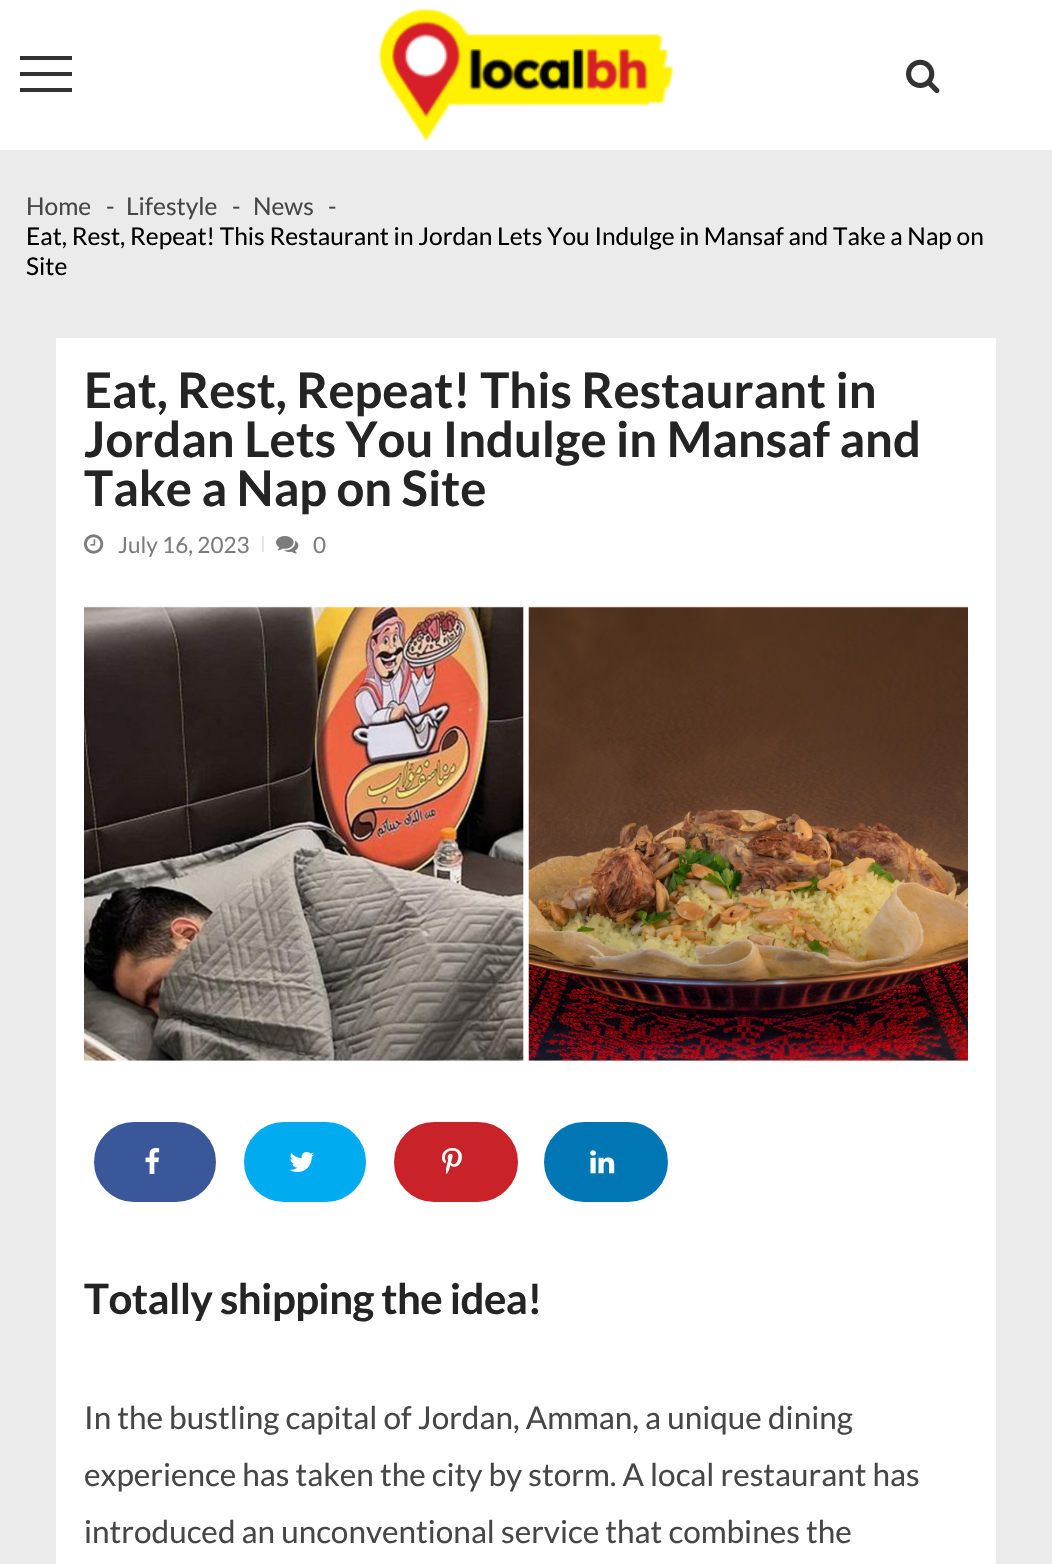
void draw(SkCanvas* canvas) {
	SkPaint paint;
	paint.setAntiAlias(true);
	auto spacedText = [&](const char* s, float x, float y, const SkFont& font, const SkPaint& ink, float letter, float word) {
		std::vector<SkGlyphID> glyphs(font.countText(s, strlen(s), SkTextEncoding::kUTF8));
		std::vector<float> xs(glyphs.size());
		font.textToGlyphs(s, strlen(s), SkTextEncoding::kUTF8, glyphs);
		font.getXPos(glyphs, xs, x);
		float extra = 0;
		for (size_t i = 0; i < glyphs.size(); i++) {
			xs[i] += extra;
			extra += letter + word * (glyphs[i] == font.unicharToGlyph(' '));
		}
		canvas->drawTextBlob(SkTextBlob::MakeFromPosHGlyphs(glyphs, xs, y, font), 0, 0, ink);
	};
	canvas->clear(0xffebebeb);
	paint.setColor(0xffffffff);
	canvas->drawRect(SkRect::MakeXYWH(0, 0, 1052, 150), paint);
	paint.setColor(0xff333333);
	canvas->drawRect(SkRect::MakeXYWH(20, 72, 52, 4), paint);
	canvas->drawRect(SkRect::MakeXYWH(20, 56, 52, 4), paint);
	canvas->drawRect(SkRect::MakeXYWH(20, 88, 52, 4), paint);
	canvas->drawImageRect(SkImages::DeferredFromEncodedData(SkData::MakeFromFileName("img1.png")), SkRect::MakeXYWH(378, 8, 296, 134), SkSamplingOptions());
	canvas->drawImageRect(SkImages::DeferredFromEncodedData(SkData::MakeFromFileName("img2.png")), SkRect::MakeXYWH(906, 59, 34, 35), SkSamplingOptions());
	SkFont f1(fontMgr->matchFamilyStyle("Lato", SkFontStyle::Normal()), 24.5);
	f1.setSubpixel(true);
	paint.setColor(0xff464646);
	canvas->drawString("Home", 26, 215, f1, paint);
	canvas->drawString("-", 106, 215, f1, paint);
	canvas->drawString("Lifestyle", 126, 215, f1, paint);
	canvas->drawString("-", 232, 215, f1, paint);
	canvas->drawString("News", 253, 215, f1, paint);
	canvas->drawString("-", 328, 215, f1, paint);
	paint.setColor(0xff000000);
	canvas->drawString("Eat, Rest, Repeat! This Restaurant in Jordan Lets You Indulge in Mansaf and Take a Nap on", 26, 245, f1, paint);
	canvas->drawString("Site", 26, 275, f1, paint);
	paint.setColor(0xffffffff);
	canvas->drawRect(SkRect::MakeXYWH(56, 338, 940, 1226), paint);
	SkFont f2(fontMgr->matchFamilyStyle("Lato", SkFontStyle::Bold()), 49);
	f2.setSubpixel(true);
	paint.setColor(0xff242424);
	canvas->drawString("Eat, Rest, Repeat! This Restaurant in", 84, 408, f2, paint);
	canvas->drawString("Jordan Lets You Indulge in Mansaf and", 84, 457, f2, paint);
	canvas->drawString("Take a Nap on Site", 84, 506, f2, paint);
	canvas->drawImageRect(SkImages::DeferredFromEncodedData(SkData::MakeFromFileName("img3.png")), SkRect::MakeXYWH(84, 534, 20, 20), SkSamplingOptions());
	SkFont f3(fontMgr->matchFamilyStyle("Lato", SkFontStyle::Normal()), 22.5);
	f3.setSubpixel(true);
	paint.setColor(0xff7c7c7c);
	canvas->drawString("July 16, 2023", 118, 553, f3, paint);
	paint.setColor(0xffe6e6e6);
	canvas->drawRect(SkRect::MakeXYWH(262, 536, 2, 16), paint);
	canvas->drawImageRect(SkImages::DeferredFromEncodedData(SkData::MakeFromFileName("img4.png")), SkRect::MakeXYWH(276, 536, 23, 18), SkSamplingOptions());
	paint.setColor(0xff7c7c7c);
	canvas->drawString("0", 313, 553, f3, paint);
	canvas->drawImageRect(SkImages::DeferredFromEncodedData(SkData::MakeFromFileName("img5.png")), SkRect::MakeXYWH(84, 606, 884, 456), SkSamplingOptions());
	paint.setColor(0xff3a579a);
	canvas->drawRoundRect(SkRect::MakeXYWH(96, 1124, 118, 76), 38, 38, paint);
	paint.setStroke(true);
	paint.setStrokeWidth(4);
	canvas->drawRoundRect(SkRect::MakeXYWH(96, 1124, 118, 76), 38, 38, paint);
	canvas->drawImageRect(SkImages::DeferredFromEncodedData(SkData::MakeFromFileName("img6.png")), SkRect::MakeXYWH(145, 1148, 15, 26), SkSamplingOptions());
	paint.setStroke(false);
	paint.setColor(0xff00abf0);
	canvas->drawRoundRect(SkRect::MakeXYWH(246, 1124, 118, 76), 38, 38, paint);
	paint.setStroke(true);
	canvas->drawRoundRect(SkRect::MakeXYWH(246, 1124, 118, 76), 38, 38, paint);
	canvas->drawImageRect(SkImages::DeferredFromEncodedData(SkData::MakeFromFileName("img7.png")), SkRect::MakeXYWH(289, 1152, 25, 20), SkSamplingOptions());
	paint.setStroke(false);
	paint.setColor(0xffc92228);
	canvas->drawRoundRect(SkRect::MakeXYWH(396, 1124, 120, 76), 38, 38, paint);
	paint.setStroke(true);
	canvas->drawRoundRect(SkRect::MakeXYWH(396, 1124, 120, 76), 38, 38, paint);
	canvas->drawImageRect(SkImages::DeferredFromEncodedData(SkData::MakeFromFileName("img8.png")), SkRect::MakeXYWH(441, 1148, 21, 26), SkSamplingOptions());
	paint.setStroke(false);
	paint.setColor(0xff0077b5);
	canvas->drawRoundRect(SkRect::MakeXYWH(546, 1124, 120, 76), 38, 38, paint);
	paint.setStroke(true);
	canvas->drawRoundRect(SkRect::MakeXYWH(546, 1124, 120, 76), 38, 38, paint);
	canvas->drawImageRect(SkImages::DeferredFromEncodedData(SkData::MakeFromFileName("img9.png")), SkRect::MakeXYWH(590, 1150, 25, 24), SkSamplingOptions());
	SkFont f4(fontMgr->matchFamilyStyle("Lato", SkFontStyle::Bold()), 42);
	f4.setSubpixel(true);
	paint.setStroke(false);
	paint.setColor(0xff242424);
	spacedText("Totally shipping the idea!", 84, 1314, f4, paint, -0.55, 0);
	SkFont f5(fontMgr->matchFamilyStyle("Lato", SkFontStyle::Normal()), 31.5);
	f5.setSubpixel(true);
	paint.setColor(0xff464646);
	canvas->drawString("In the bustling capital of Jordan, Amman, a unique dining", 84, 1429, f5, paint);
	canvas->drawString("experience has taken the city by storm. A local restaurant has", 84, 1486, f5, paint);
	canvas->drawString("introduced an unconventional service that combines the", 84, 1543, f5, paint);
}
